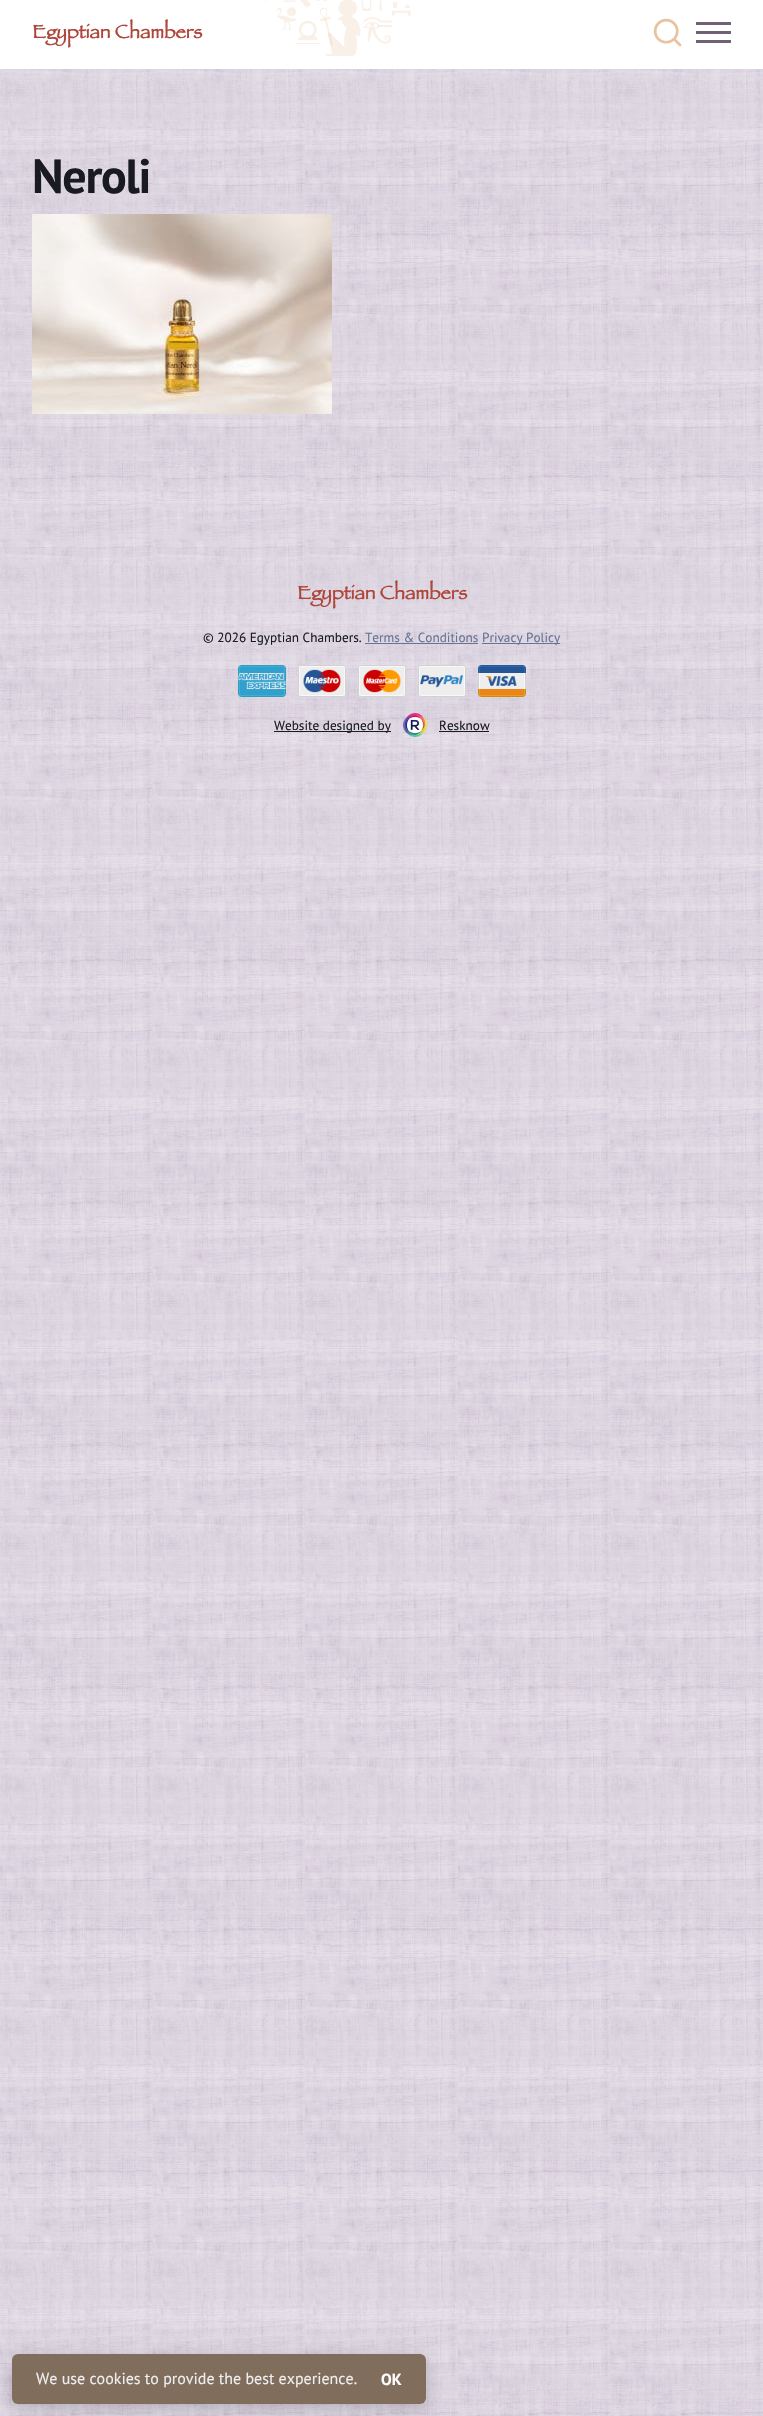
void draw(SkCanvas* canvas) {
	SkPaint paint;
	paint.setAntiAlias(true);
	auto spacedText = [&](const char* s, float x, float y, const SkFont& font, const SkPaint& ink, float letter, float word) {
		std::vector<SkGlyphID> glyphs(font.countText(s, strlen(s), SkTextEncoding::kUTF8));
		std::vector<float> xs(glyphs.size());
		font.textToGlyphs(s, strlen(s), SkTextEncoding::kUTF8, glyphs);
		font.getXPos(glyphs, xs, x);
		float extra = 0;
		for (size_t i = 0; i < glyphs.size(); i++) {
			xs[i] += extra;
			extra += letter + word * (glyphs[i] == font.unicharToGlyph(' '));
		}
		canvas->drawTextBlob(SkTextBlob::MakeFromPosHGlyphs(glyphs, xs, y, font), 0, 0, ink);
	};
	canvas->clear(0xffe5dfe8);
	canvas->drawImageRect(SkImages::DeferredFromEncodedData(SkData::MakeFromFileName("img1.png")), SkRect::MakeXYWH(0, 69, 763, 2347), SkSamplingOptions());
	paint.setColor(0xffffffff);
	canvas->drawRect(SkRect::MakeXYWH(0, 0, 763, 69), paint);
	SkFont f1(fontMgr->matchFamilyStyle("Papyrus", SkFontStyle::Bold()), 19.25);
	f1.setSubpixel(true);
	paint.setColor(0xffaf463b);
	canvas->drawString("Egyptian Chambers", 32, 38, f1, paint);
	canvas->drawImageRect(SkImages::DeferredFromEncodedData(SkData::MakeFromFileName("img2.png")), SkRect::MakeXYWH(265, 0, 146, 56), SkSamplingOptions());
	canvas->drawImageRect(SkImages::DeferredFromEncodedData(SkData::MakeFromFileName("img3.png")), SkRect::MakeXYWH(653, 18, 29, 29), SkSamplingOptions());
	paint.setColor(0xff706177);
	canvas->drawRect(SkRect::MakeXYWH(696, 22, 35, 3), paint);
	canvas->drawRect(SkRect::MakeXYWH(696, 31, 35, 3), paint);
	canvas->drawRect(SkRect::MakeXYWH(696, 40, 35, 3), paint);
	SkFont f2(fontMgr->matchFamilyStyle("PT Sans", SkFontStyle::Bold()), 48);
	f2.setSubpixel(true);
	paint.setColor(0xff191a22);
	spacedText("Neroli", 32, 193, f2, paint, -1.25, 0);
	canvas->drawImageRect(SkImages::DeferredFromEncodedData(SkData::MakeFromFileName("img4.png")), SkRect::MakeXYWH(32, 214, 300, 200), SkSamplingOptions());
	paint.setColor(0xffaf463b);
	canvas->drawString("Egyptian Chambers", 297, 599, f1, paint);
	SkFont f3(fontMgr->matchFamilyStyle("PT Sans", SkFontStyle::Normal()), 13.25);
	f3.setSubpixel(true);
	paint.setColor(0xff191a22);
	canvas->drawString("© 2026 Egyptian Chambers.", 203, 642, f3, paint);
	paint.setColor(0xff667391);
	canvas->drawString("Terms & Conditions", 365, 642, f3, paint);
	canvas->drawRect(SkRect::MakeXYWH(365, 643, 113, 1), paint);
	canvas->drawRect(SkRect::MakeXYWH(482, 643, 78, 1), paint);
	canvas->drawString("Privacy Policy", 482, 642, f3, paint);
	canvas->drawImageRect(SkImages::DeferredFromEncodedData(SkData::MakeFromFileName("img5.png")), SkRect::MakeXYWH(238, 665, 48, 32), SkSamplingOptions());
	canvas->drawImageRect(SkImages::DeferredFromEncodedData(SkData::MakeFromFileName("img6.png")), SkRect::MakeXYWH(298, 665, 48, 32), SkSamplingOptions());
	canvas->drawImageRect(SkImages::DeferredFromEncodedData(SkData::MakeFromFileName("img7.png")), SkRect::MakeXYWH(358, 665, 48, 32), SkSamplingOptions());
	canvas->drawImageRect(SkImages::DeferredFromEncodedData(SkData::MakeFromFileName("img8.png")), SkRect::MakeXYWH(418, 665, 48, 32), SkSamplingOptions());
	canvas->drawImageRect(SkImages::DeferredFromEncodedData(SkData::MakeFromFileName("img9.png")), SkRect::MakeXYWH(478, 665, 48, 32), SkSamplingOptions());
	paint.setColor(0xff191a22);
	canvas->drawRect(SkRect::MakeXYWH(274, 731, 117, 1), paint);
	canvas->drawString("Website designed by", 274, 730, f3, paint);
	canvas->drawImageRect(SkImages::DeferredFromEncodedData(SkData::MakeFromFileName("img10.png")), SkRect::MakeXYWH(403, 713, 24, 24), SkSamplingOptions());
	canvas->drawString("Resknow", 439, 730, f3, paint);
	canvas->drawRect(SkRect::MakeXYWH(439, 731, 50, 1), paint);
	paint.setColor(0x33000000);
	paint.setMaskFilter(SkMaskFilter::MakeBlur(kNormal_SkBlurStyle, 9));
	canvas->drawRoundRect(SkRect::MakeXYWH(12, 2358, 414, 50), 6, 6, paint);
	paint.setMaskFilter(nullptr);
	paint.setColor(0xff816d5b);
	canvas->drawRoundRect(SkRect::MakeXYWH(12, 2354, 414, 50), 6, 6, paint);
	SkFont f4(fontMgr->matchFamilyStyle("PT Sans", SkFontStyle::Normal()), 16);
	f4.setSubpixel(true);
	paint.setColor(0xffeeeef0);
	canvas->drawString("We use cookies to provide the best experience.", 36, 2384, f4, paint);
	SkFont f5(fontMgr->matchFamilyStyle("PT Sans", SkFontStyle::Bold()), 16);
	f5.setSubpixel(true);
	paint.setColor(0xffffffff);
	canvas->drawString("OK", 381, 2385, f5, paint);
}
